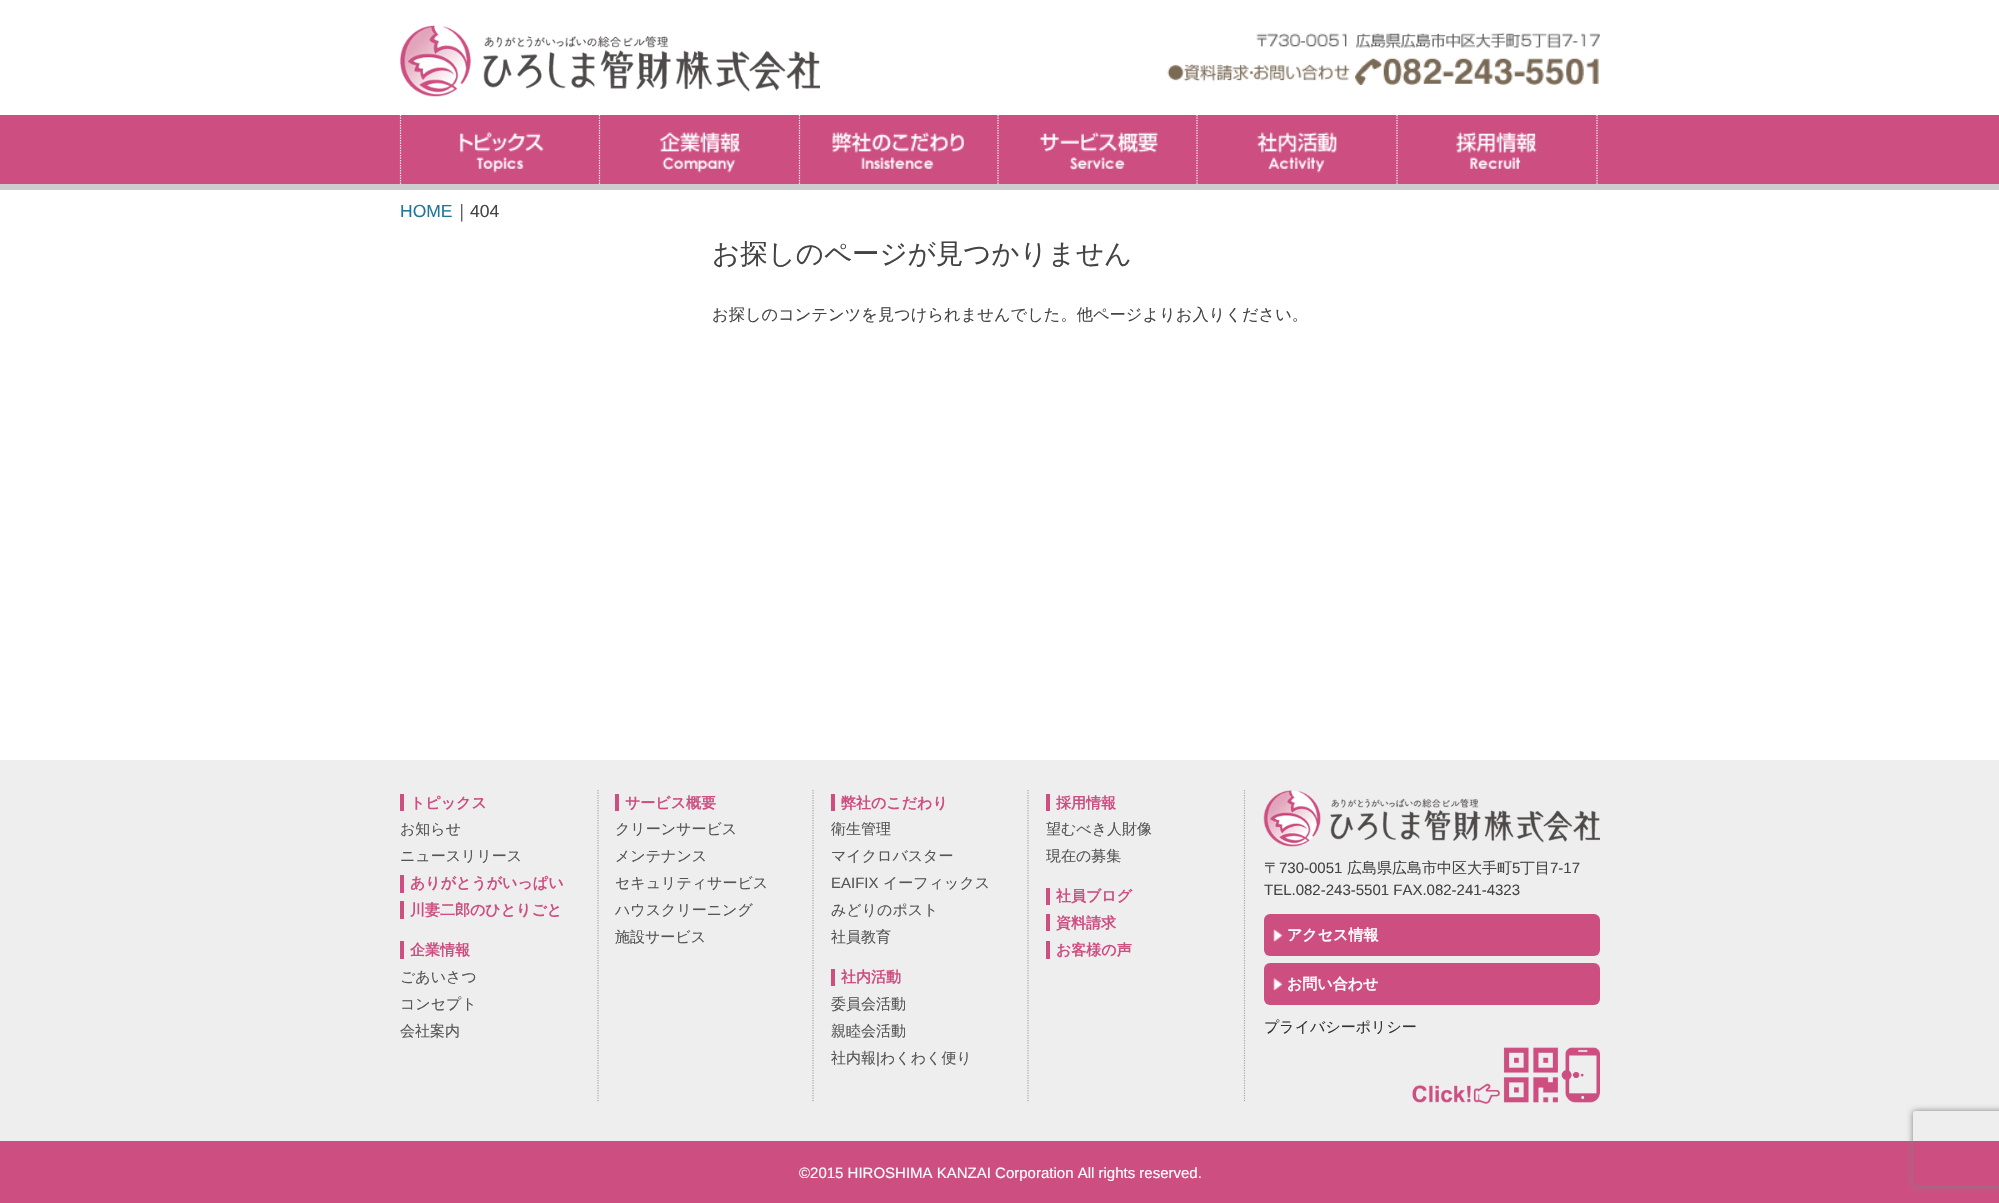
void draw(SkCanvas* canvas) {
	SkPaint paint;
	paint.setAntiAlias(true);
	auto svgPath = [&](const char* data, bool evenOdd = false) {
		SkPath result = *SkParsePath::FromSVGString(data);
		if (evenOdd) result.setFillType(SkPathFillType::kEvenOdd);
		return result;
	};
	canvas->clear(0xffffffff);
	canvas->drawImageRect(SkImages::DeferredFromEncodedData(SkData::MakeFromFileName("img1.png")), SkRect::MakeXYWH(400, 25, 420, 72), SkSamplingOptions());
	canvas->drawImageRect(SkImages::DeferredFromEncodedData(SkData::MakeFromFileName("img2.png")), SkRect::MakeXYWH(1167, 32, 433, 53), SkSamplingOptions());
	paint.setColor(0xffcd4f82);
	canvas->drawRect(SkRect::MakeXYWH(0, 115, 1999, 69), paint);
	paint.setColor(0xffcccccc);
	canvas->drawRect(SkRect::MakeXYWH(0, 184, 1999, 6), paint);
	canvas->drawImageRect(SkImages::DeferredFromEncodedData(SkData::MakeFromFileName("img3.png")), SkRect::MakeXYWH(459, 132, 85, 41), SkSamplingOptions());
	paint.setStroke(true);
	paint.setStrokeWidth(1.2);
	paint.setColor(0xffffffff);
	paint.setPathEffect(SkDashPathEffect::Make({{1.25f, 1.25f}}, 0));
	canvas->drawPath(svgPath("M400.5 115V184"), paint);
	paint.setPathEffect(nullptr);
	canvas->drawImageRect(SkImages::DeferredFromEncodedData(SkData::MakeFromFileName("img4.png")), SkRect::MakeXYWH(659, 132, 82, 41), SkSamplingOptions());
	paint.setPathEffect(SkDashPathEffect::Make({{1.25f, 1.25f}}, 0));
	canvas->drawPath(svgPath("M599.5 115V184"), paint);
	paint.setPathEffect(nullptr);
	canvas->drawImageRect(SkImages::DeferredFromEncodedData(SkData::MakeFromFileName("img5.png")), SkRect::MakeXYWH(832, 132, 132, 37), SkSamplingOptions());
	paint.setPathEffect(SkDashPathEffect::Make({{1.25f, 1.25f}}, 0));
	canvas->drawPath(svgPath("M799.5 115V184"), paint);
	paint.setPathEffect(nullptr);
	canvas->drawImageRect(SkImages::DeferredFromEncodedData(SkData::MakeFromFileName("img6.png")), SkRect::MakeXYWH(1039, 132, 119, 39), SkSamplingOptions());
	paint.setPathEffect(SkDashPathEffect::Make({{1.25f, 1.25f}}, 0));
	canvas->drawPath(svgPath("M998 115V184"), paint);
	paint.setPathEffect(nullptr);
	canvas->drawImageRect(SkImages::DeferredFromEncodedData(SkData::MakeFromFileName("img7.png")), SkRect::MakeXYWH(1257, 132, 80, 41), SkSamplingOptions());
	paint.setPathEffect(SkDashPathEffect::Make({{1.25f, 1.25f}}, 0));
	canvas->drawPath(svgPath("M1197 115V184"), paint);
	paint.setPathEffect(nullptr);
	canvas->drawImageRect(SkImages::DeferredFromEncodedData(SkData::MakeFromFileName("img8.png")), SkRect::MakeXYWH(1456, 132, 81, 37), SkSamplingOptions());
	paint.setPathEffect(SkDashPathEffect::Make({{1.25f, 1.25f}}, 0));
	canvas->drawPath(svgPath("M1597 115V184"), paint);
	paint.setPathEffect(nullptr);
	paint.setPathEffect(SkDashPathEffect::Make({{1.25f, 1.25f}}, 0));
	canvas->drawPath(svgPath("M1397 115V184"), paint);
	paint.setPathEffect(nullptr);
	SkFont f1(fontMgr->matchFamilyStyle("Liberation Sans", SkFontStyle::Normal()), 17.5);
	f1.setSubpixel(true);
	paint.setStroke(false);
	paint.setColor(0xff21759b);
	canvas->drawString("HOME", 400, 217, f1, paint);
	SkFont f2(fontMgr->matchFamilyStyle("WenQuanYi Zen Hei", SkFontStyle(500, SkFontStyle::kNormal_Width, SkFontStyle::kUpright_Slant)), 17.5);
	f2.setSubpixel(true);
	paint.setColor(0xff444444);
	canvas->drawString("｜", 453, 217, f2, paint);
	canvas->drawString("404", 470, 217, f1, paint);
	SkFont f3(fontMgr->matchFamilyStyle("WenQuanYi Zen Hei", SkFontStyle(500, SkFontStyle::kNormal_Width, SkFontStyle::kUpright_Slant)), 27.5);
	f3.setSubpixel(true);
	canvas->drawString("お探しのページが見つかりません", 712, 263, f3, paint);
	SkFont f4(fontMgr->matchFamilyStyle("WenQuanYi Zen Hei", SkFontStyle(500, SkFontStyle::kNormal_Width, SkFontStyle::kUpright_Slant)), 16.25);
	f4.setSubpixel(true);
	canvas->drawString("お探しのコンテンツを見つけられませんでした。他ページよりお入りください。", 712, 320, f4, paint);
	paint.setColor(0xffeeeeee);
	canvas->drawRect(SkRect::MakeXYWH(0, 760, 1999, 381), paint);
	paint.setStroke(true);
	paint.setColor(0xffaaaaaa);
	paint.setPathEffect(SkDashPathEffect::Make({{1.25f, 1.25f}}, 0));
	canvas->drawPath(svgPath("M598 790V1102.5"), paint);
	paint.setPathEffect(nullptr);
	SkFont f5(fontMgr->matchFamilyStyle("WenQuanYi Zen Hei", SkFontStyle::Bold()), 15);
	f5.setSubpixel(true);
	paint.setStroke(false);
	paint.setColor(0xffcd4f82);
	canvas->drawString("トピックス", 410, 808, f5, paint);
	canvas->drawRect(SkRect::MakeXYWH(400, 794, 4, 17), paint);
	SkFont f6(fontMgr->matchFamilyStyle("WenQuanYi Zen Hei", SkFontStyle(500, SkFontStyle::kNormal_Width, SkFontStyle::kUpright_Slant)), 15);
	f6.setSubpixel(true);
	paint.setColor(0xff555555);
	canvas->drawString("お知らせ", 400, 834, f6, paint);
	canvas->drawString("ニュースリリース", 400, 861, f6, paint);
	paint.setColor(0xffcd4f82);
	canvas->drawString("ありがとうがいっぱい", 410, 888, f5, paint);
	canvas->drawRect(SkRect::MakeXYWH(400, 875, 4, 18), paint);
	canvas->drawString("川妻二郎のひとりごと", 410, 915, f5, paint);
	canvas->drawRect(SkRect::MakeXYWH(400, 901, 4, 18), paint);
	canvas->drawString("企業情報", 410, 955, f5, paint);
	canvas->drawRect(SkRect::MakeXYWH(400, 941, 4, 18), paint);
	paint.setColor(0xff555555);
	canvas->drawString("ごあいさつ", 400, 982, f6, paint);
	canvas->drawString("コンセプト", 400, 1009, f6, paint);
	canvas->drawString("会社案内", 400, 1036, f6, paint);
	paint.setStroke(true);
	paint.setColor(0xffaaaaaa);
	paint.setPathEffect(SkDashPathEffect::Make({{1.25f, 1.25f}}, 0));
	canvas->drawPath(svgPath("M813 790V1102.5"), paint);
	paint.setPathEffect(nullptr);
	paint.setStroke(false);
	paint.setColor(0xffcd4f82);
	canvas->drawString("サービス概要", 625, 808, f5, paint);
	canvas->drawRect(SkRect::MakeXYWH(615, 794, 4, 17), paint);
	paint.setColor(0xff555555);
	canvas->drawString("クリーンサービス", 615, 834, f6, paint);
	canvas->drawString("メンテナンス", 615, 861, f6, paint);
	canvas->drawString("セキュリティサービス", 615, 888, f6, paint);
	canvas->drawString("ハウスクリーニング", 615, 915, f6, paint);
	canvas->drawString("施設サービス", 615, 942, f6, paint);
	paint.setStroke(true);
	paint.setColor(0xffaaaaaa);
	paint.setPathEffect(SkDashPathEffect::Make({{1.25f, 1.25f}}, 0));
	canvas->drawPath(svgPath("M1028 790V1102.5"), paint);
	paint.setPathEffect(nullptr);
	paint.setStroke(false);
	paint.setColor(0xffcd4f82);
	canvas->drawString("弊社のこだわり", 841, 808, f5, paint);
	canvas->drawRect(SkRect::MakeXYWH(831, 794, 4, 17), paint);
	paint.setColor(0xff555555);
	canvas->drawString("衛生管理", 831, 834, f6, paint);
	canvas->drawString("マイクロバスター", 831, 861, f6, paint);
	SkFont f7(fontMgr->matchFamilyStyle("Liberation Sans", SkFontStyle::Normal()), 15);
	f7.setSubpixel(true);
	canvas->drawString("EAIFIX", 831, 888, f7, paint);
	canvas->drawString("イーフィックス", 883, 888, f6, paint);
	canvas->drawString("みどりのポスト", 831, 915, f6, paint);
	canvas->drawString("社員教育", 831, 942, f6, paint);
	paint.setColor(0xffcd4f82);
	canvas->drawString("社内活動", 841, 982, f5, paint);
	canvas->drawRect(SkRect::MakeXYWH(831, 969, 4, 17), paint);
	paint.setColor(0xff555555);
	canvas->drawString("委員会活動", 831, 1009, f6, paint);
	canvas->drawString("親睦会活動", 831, 1036, f6, paint);
	canvas->drawString("社内報", 831, 1063, f6, paint);
	canvas->drawString("|", 876, 1063, f7, paint);
	canvas->drawString("わくわく便り", 880, 1063, f6, paint);
	paint.setStroke(true);
	paint.setColor(0xffaaaaaa);
	paint.setPathEffect(SkDashPathEffect::Make({{1.25f, 1.25f}}, 0));
	canvas->drawPath(svgPath("M1244.5 790V1102.5"), paint);
	paint.setPathEffect(nullptr);
	paint.setStroke(false);
	paint.setColor(0xffcd4f82);
	canvas->drawString("採用情報", 1056, 808, f5, paint);
	canvas->drawRect(SkRect::MakeXYWH(1046, 794, 4, 17), paint);
	paint.setColor(0xff555555);
	canvas->drawString("望むべき人財像", 1046, 834, f6, paint);
	canvas->drawString("現在の募集", 1046, 861, f6, paint);
	paint.setColor(0xffcd4f82);
	canvas->drawString("社員ブログ", 1056, 901, f5, paint);
	canvas->drawRect(SkRect::MakeXYWH(1046, 888, 4, 17), paint);
	canvas->drawString("資料請求", 1056, 928, f5, paint);
	canvas->drawRect(SkRect::MakeXYWH(1046, 914, 4, 17), paint);
	canvas->drawString("お客様の声", 1056, 955, f5, paint);
	canvas->drawRect(SkRect::MakeXYWH(1046, 941, 4, 18), paint);
	canvas->drawImageRect(SkImages::DeferredFromEncodedData(SkData::MakeFromFileName("img9.png")), SkRect::MakeXYWH(1263, 790, 337, 57), SkSamplingOptions());
	paint.setColor(0xff444444);
	canvas->drawString("〒", 1264, 873, f6, paint);
	canvas->drawString("730-0051", 1279, 873, f7, paint);
	canvas->drawString("広島県広島市中区大手町", 1347, 873, f6, paint);
	canvas->drawString("5", 1512, 873, f7, paint);
	canvas->drawString("丁目", 1520, 873, f6, paint);
	canvas->drawString("7-17", 1550, 873, f7, paint);
	canvas->drawString("TEL.082-243-5501 FAX.082-241-4323", 1264, 895, f7, paint);
	paint.setColor(0xffcd4f82);
	canvas->drawRoundRect(SkRect::MakeXYWH(1264, 914, 336, 42), 6, 6, paint);
	canvas->drawImageRect(SkImages::DeferredFromEncodedData(SkData::MakeFromFileName("img10.png")), SkRect::MakeXYWH(1273, 929, 10, 13), SkSamplingOptions());
	paint.setColor(0xffffffff);
	canvas->drawString("アクセス情報", 1287, 940, f5, paint);
	paint.setColor(0xffcd4f82);
	canvas->drawRoundRect(SkRect::MakeXYWH(1264, 963, 336, 42), 6, 6, paint);
	canvas->drawImageRect(SkImages::DeferredFromEncodedData(SkData::MakeFromFileName("img11.png")), SkRect::MakeXYWH(1273, 977, 10, 13), SkSamplingOptions());
	paint.setColor(0xffffffff);
	canvas->drawString("お問い合わせ", 1287, 989, f5, paint);
	paint.setColor(0xff333333);
	canvas->drawString("プライバシーポリシー", 1264, 1032, f6, paint);
	canvas->drawImageRect(SkImages::DeferredFromEncodedData(SkData::MakeFromFileName("img12.png")), SkRect::MakeXYWH(1412, 1047, 188, 57), SkSamplingOptions());
	paint.setColor(0xffcd4f82);
	canvas->drawRect(SkRect::MakeXYWH(0, 1141, 1999, 62), paint);
	paint.setColor(0xffffffff);
	canvas->drawString("©2015 HIROSHIMA KANZAI Corporation All rights reserved.", 799, 1178, f7, paint);
	canvas->save();
	canvas->clipPath(svgPath("M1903 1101H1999V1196H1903ZM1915.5 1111H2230.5C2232 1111 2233 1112 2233 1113.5V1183.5C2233 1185 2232 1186 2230.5 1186H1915.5C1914 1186 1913 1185 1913 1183.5V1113.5C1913 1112 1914 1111 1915.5 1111Z", true), true);
	paint.setColor(0xff808080);
	paint.setMaskFilter(SkMaskFilter::MakeBlur(kNormal_SkBlurStyle, 3));
	canvas->drawRoundRect(SkRect::MakeXYWH(1913, 1111, 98, 75), 2.5, 2.5, paint);
	paint.setMaskFilter(nullptr);
	canvas->restore();
}
